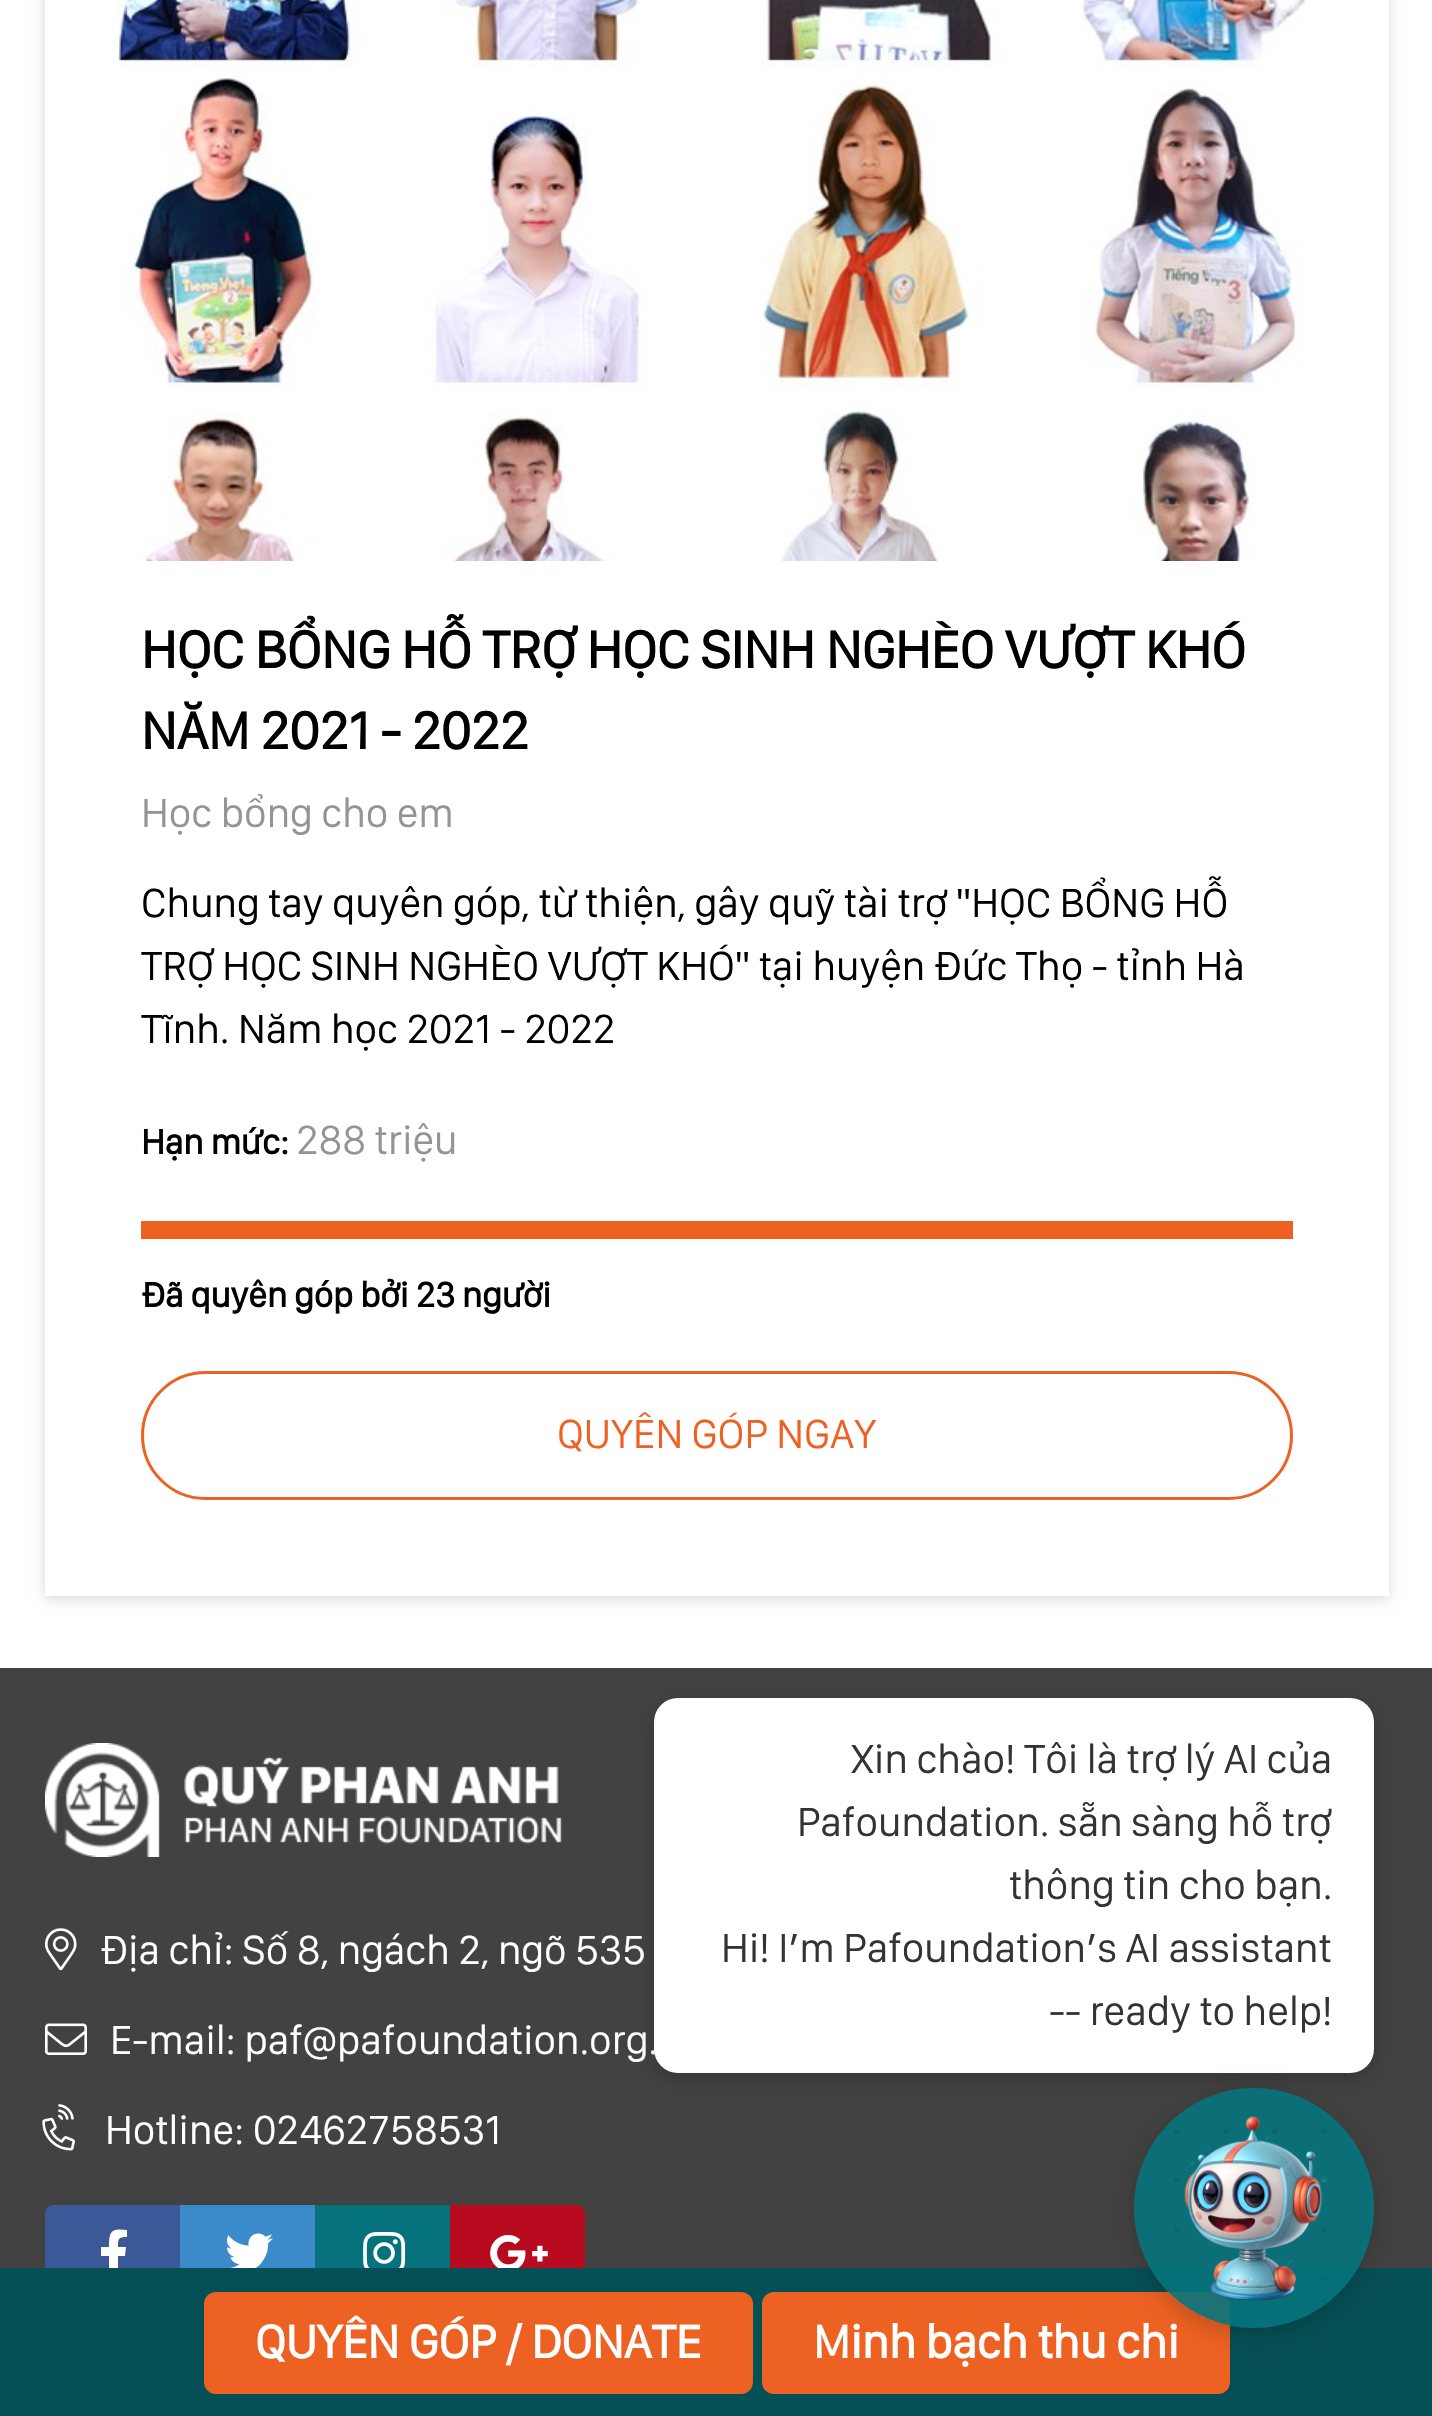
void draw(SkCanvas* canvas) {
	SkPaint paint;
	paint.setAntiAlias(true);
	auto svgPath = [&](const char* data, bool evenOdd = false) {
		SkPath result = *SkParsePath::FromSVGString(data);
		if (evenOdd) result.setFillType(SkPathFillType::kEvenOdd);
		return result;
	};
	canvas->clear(0xffffffff);
	canvas->save();
	canvas->clipPath(svgPath("M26 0H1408V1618H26ZM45-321H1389V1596H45Z", true), true);
	paint.setColor(0x26000000);
	paint.setMaskFilter(SkMaskFilter::MakeBlur(kNormal_SkBlurStyle, 6));
	canvas->drawRect(SkRect::MakeXYWH(45, -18, 1344, 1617), paint);
	paint.setMaskFilter(nullptr);
	canvas->restore();
	canvas->drawImageRect(SkImages::DeferredFromEncodedData(SkData::MakeFromFileName("img1.png")), SkRect::MakeXYWH(117, 0, 1189, 561), SkSamplingOptions());
	SkFont f1(fontMgr->matchFamilyStyle("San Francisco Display", SkFontStyle::Bold()), 54);
	f1.setSubpixel(true);
	paint.setColor(0xff000000);
	canvas->drawString("HỌC BỔNG HỖ TRỢ HỌC SINH NGHÈO VƯỢT KHÓ", 141, 668, f1, paint);
	canvas->drawString("NĂM 2021 - 2022", 141, 749, f1, paint);
	SkFont f2(fontMgr->matchFamilyStyle("San Francisco Display", SkFontStyle::Normal()), 42);
	f2.setSubpixel(true);
	paint.setColor(0xff959393);
	canvas->drawString("Học bổng cho em", 141, 827, f2, paint);
	paint.setColor(0xff000000);
	canvas->drawString("Chung tay quyên góp, từ thiện, gây quỹ tài trợ \"HỌC BỔNG HỖ", 141, 917, f2, paint);
	canvas->drawString("TRỢ HỌC SINH NGHÈO VƯỢT KHÓ\" tại huyện Đức Thọ - tỉnh Hà", 141, 980, f2, paint);
	canvas->drawString("Tĩnh. Năm học 2021 - 2022", 141, 1043, f2, paint);
	SkFont f3(fontMgr->matchFamilyStyle("San Francisco Display", SkFontStyle::Bold()), 36);
	f3.setSubpixel(true);
	canvas->drawString("Hạn mức:", 141, 1154, f3, paint);
	paint.setColor(0xff959393);
	canvas->drawString("288 triệu", 296, 1154, f2, paint);
	paint.setColor(0xffed6222);
	canvas->drawRect(SkRect::MakeXYWH(141, 1221, 1152, 18), paint);
	paint.setColor(0xff000000);
	canvas->drawString("Đã quyên góp bởi 23 người", 141, 1307, f3, paint);
	paint.setStroke(true);
	paint.setStrokeWidth(3);
	paint.setColor(0xffed6222);
	canvas->drawRoundRect(SkRect::MakeXYWH(142.5, 1372.5, 1149, 126), 63, 63, paint);
	paint.setStroke(false);
	canvas->drawString("QUYÊN GÓP NGAY", 557, 1448, f2, paint);
	paint.setColor(0xff424242);
	canvas->drawRect(SkRect::MakeXYWH(0, 1668, 1432, 600), paint);
	canvas->drawImageRect(SkImages::DeferredFromEncodedData(SkData::MakeFromFileName("img2.png")), SkRect::MakeXYWH(45, 1743, 517, 114), SkSamplingOptions());
	canvas->drawImageRect(SkImages::DeferredFromEncodedData(SkData::MakeFromFileName("img3.png")), SkRect::MakeXYWH(45, 1928, 32, 43), SkSamplingOptions());
	paint.setColor(0xffffffff);
	canvas->drawString("Địa chỉ: Số 8, ngách 2, ngõ 535", 100, 1964, f2, paint);
	canvas->drawImageRect(SkImages::DeferredFromEncodedData(SkData::MakeFromFileName("img4.png")), SkRect::MakeXYWH(45, 2023, 42, 32), SkSamplingOptions());
	canvas->drawString("E-mail: paf@pafoundation.org.", 110, 2054, f2, paint);
	canvas->drawImageRect(SkImages::DeferredFromEncodedData(SkData::MakeFromFileName("img5.png")), SkRect::MakeXYWH(42, 2104, 33, 47), SkSamplingOptions());
	canvas->drawString("Hotline: 02462758531", 105, 2144, f2, paint);
	paint.setColor(0xff3b5998);
	canvas->drawPath(svgPath("M54 2205H180V2307H54C49 2307 45 2303 45 2298V2214C45 2209 49 2205 54 2205Z"), paint);
	paint.setColor(0xffffffff);
	canvas->drawPath(svgPath("M125 2256H118V2277H109V2256H101V2247H109C109 2231 111 2228 127 2230V2237C118 2237 118 2239 118 2247H126Z"), paint);
	paint.setColor(0xff3b8aca);
	canvas->drawRect(SkRect::MakeXYWH(180, 2205, 135, 63), paint);
	canvas->drawImageRect(SkImages::DeferredFromEncodedData(SkData::MakeFromFileName("img6.png")), SkRect::MakeXYWH(227, 2233, 46, 35), SkSamplingOptions());
	paint.setColor(0xff06737c);
	canvas->drawRect(SkRect::MakeXYWH(315, 2205, 135, 63), paint);
	canvas->drawImageRect(SkImages::DeferredFromEncodedData(SkData::MakeFromFileName("img7.png")), SkRect::MakeXYWH(363, 2232, 43, 36), SkSamplingOptions());
	paint.setColor(0xffb90b20);
	canvas->drawPath(svgPath("M450 2205H576C581 2205 585 2209 585 2214V2298C585 2303 581 2307 576 2307H450Z"), paint);
	canvas->drawImageRect(SkImages::DeferredFromEncodedData(SkData::MakeFromFileName("img8.png")), SkRect::MakeXYWH(490, 2235, 58, 33), SkSamplingOptions());
	paint.setColor(0x33000000);
	paint.setMaskFilter(SkMaskFilter::MakeBlur(kNormal_SkBlurStyle, 9));
	canvas->drawRoundRect(SkRect::MakeXYWH(654, 1704, 720, 375), 24, 24, paint);
	paint.setMaskFilter(nullptr);
	paint.setColor(0xffffffff);
	canvas->drawRoundRect(SkRect::MakeXYWH(654, 1698, 720, 375), 24, 24, paint);
	paint.setColor(0xff333333);
	canvas->drawString("Xin chào! Tôi là trợ lý AI của", 851, 1773, f2, paint);
	canvas->drawString("Pafoundation. sẵn sàng hỗ trợ", 797, 1836, f2, paint);
	canvas->drawString("thông tin cho bạn.", 1009, 1899, f2, paint);
	canvas->drawString("Hi! I’m Pafoundation’s AI assistant", 721, 1962, f2, paint);
	canvas->drawString("-- ready to help!", 1049, 2025, f2, paint);
	paint.setColor(0xff055056);
	canvas->drawRect(SkRect::MakeXYWH(0, 2268, 1432, 148), paint);
	paint.setColor(0xffed6222);
	canvas->drawRoundRect(SkRect::MakeXYWH(204, 2292, 549, 102), 12, 12, paint);
	SkFont f4(fontMgr->matchFamilyStyle("San Francisco Display", SkFontStyle::Bold()), 48);
	f4.setSubpixel(true);
	paint.setColor(0xffffffff);
	canvas->drawString("QUYÊN GÓP / DONATE", 255, 2358, f4, paint);
	paint.setColor(0xffed6222);
	canvas->drawRoundRect(SkRect::MakeXYWH(762, 2292, 468, 102), 12, 12, paint);
	paint.setColor(0xffffffff);
	canvas->drawString("Minh bạch thu chi", 813, 2358, f4, paint);
	canvas->save();
	canvas->clipPath(svgPath("M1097 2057H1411V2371H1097ZM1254 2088C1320.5 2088 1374 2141.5 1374 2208C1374 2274.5 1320.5 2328 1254 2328C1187.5 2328 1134 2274.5 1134 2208C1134 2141.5 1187.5 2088 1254 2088Z", true), true);
	paint.setColor(0x33000000);
	paint.setMaskFilter(SkMaskFilter::MakeBlur(kNormal_SkBlurStyle, 12));
	canvas->drawRoundRect(SkRect::MakeXYWH(1134, 2094, 240, 240), 120, 120, paint);
	paint.setMaskFilter(nullptr);
	canvas->restore();
	paint.setColor(0xe606737c);
	canvas->drawCircle(1254, 2208, 120, paint);
	canvas->drawImageRect(SkImages::DeferredFromEncodedData(SkData::MakeFromFileName("img9.png")), SkRect::MakeXYWH(1158, 2112, 183, 198), SkSamplingOptions());
}
